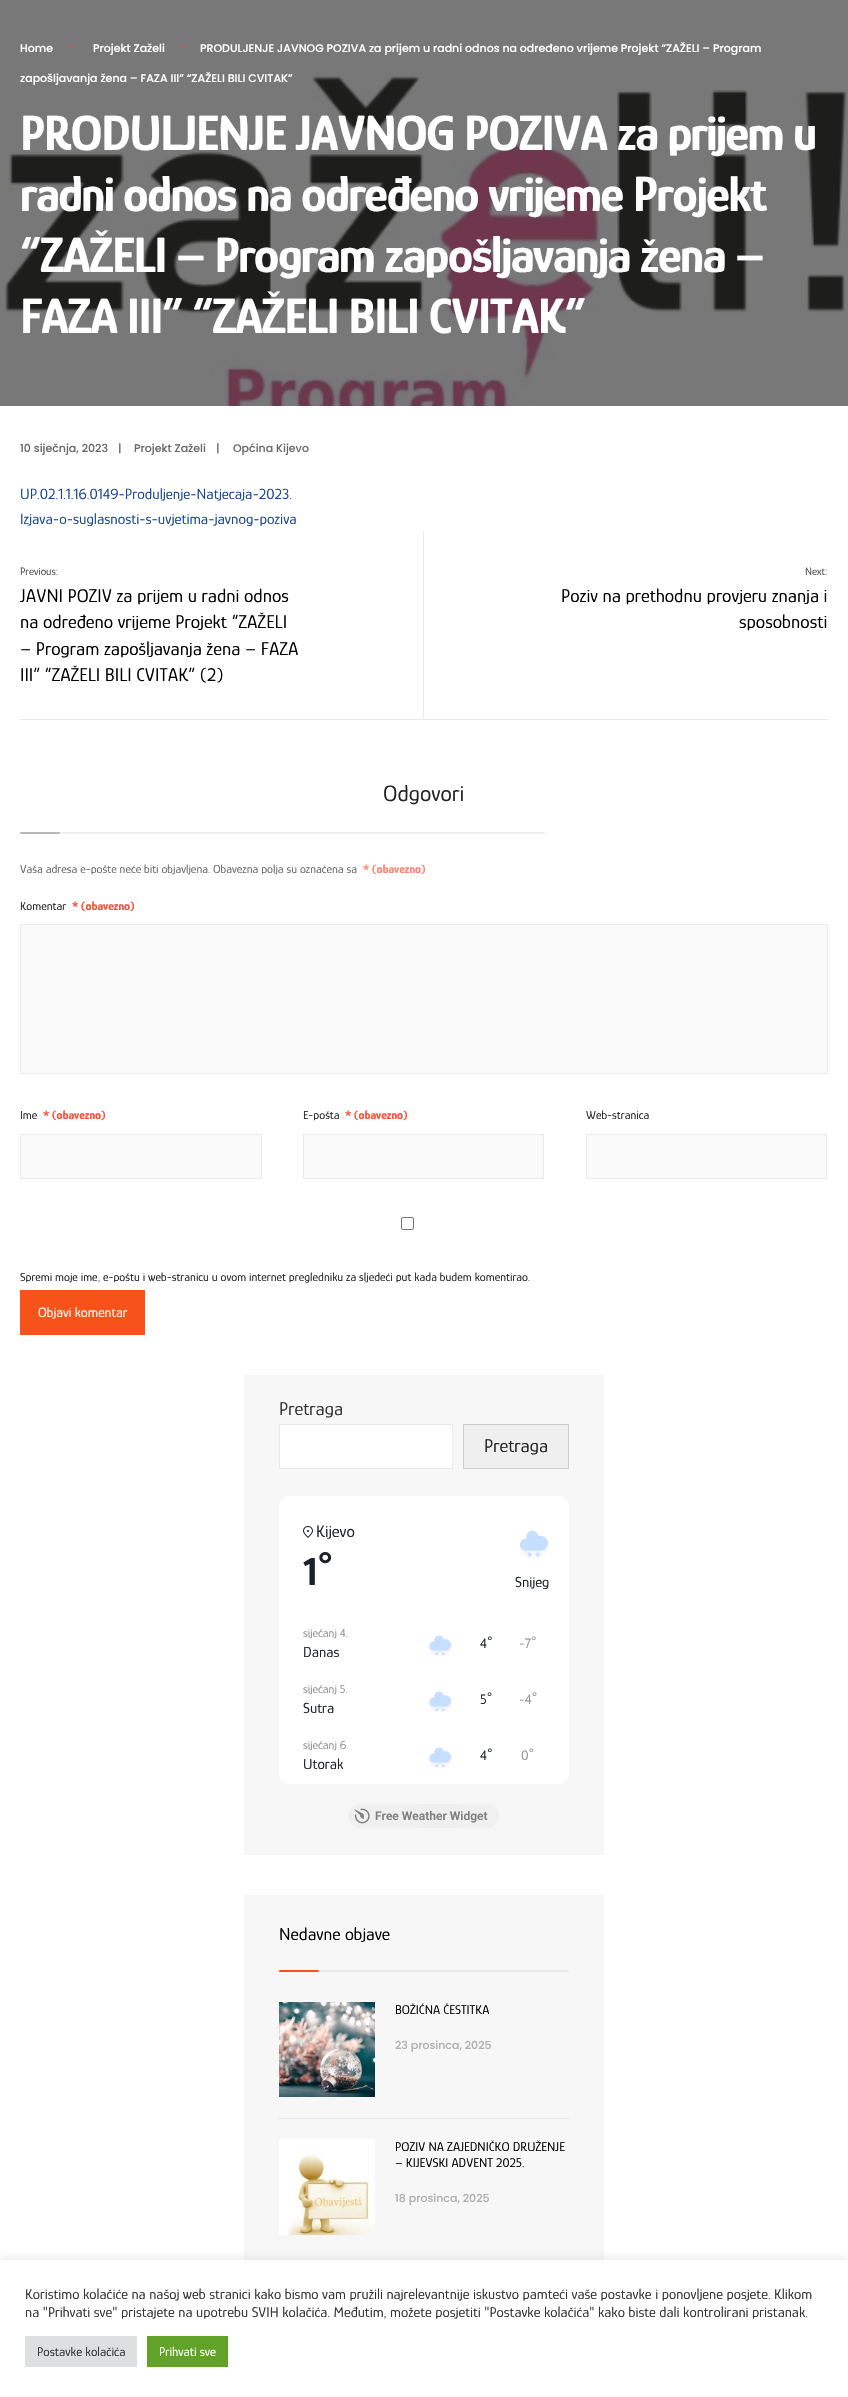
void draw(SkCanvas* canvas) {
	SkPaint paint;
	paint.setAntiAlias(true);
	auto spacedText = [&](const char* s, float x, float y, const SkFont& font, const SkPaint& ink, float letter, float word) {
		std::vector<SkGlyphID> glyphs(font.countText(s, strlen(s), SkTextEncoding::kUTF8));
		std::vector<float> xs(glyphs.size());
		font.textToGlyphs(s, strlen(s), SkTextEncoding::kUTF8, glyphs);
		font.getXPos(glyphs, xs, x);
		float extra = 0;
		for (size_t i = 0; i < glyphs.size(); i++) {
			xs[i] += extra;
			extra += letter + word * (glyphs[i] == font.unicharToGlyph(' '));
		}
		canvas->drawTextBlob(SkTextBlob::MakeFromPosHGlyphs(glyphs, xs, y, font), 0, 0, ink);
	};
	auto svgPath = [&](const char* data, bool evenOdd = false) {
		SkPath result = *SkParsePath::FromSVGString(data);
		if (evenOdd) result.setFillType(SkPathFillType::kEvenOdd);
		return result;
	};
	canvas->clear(0xffffffff);
	paint.setColor(0xff1e1e1e);
	canvas->drawRect(SkRect::MakeXYWH(0, 0, 848, 406), paint);
	canvas->drawImageRect(SkImages::DeferredFromEncodedData(SkData::MakeFromFileName("img1.png")), SkRect::MakeXYWH(0, 0, 848, 406), SkSamplingOptions());
	SkFont f1(fontMgr->matchFamilyStyle("Poppins", SkFontStyle(500, SkFontStyle::kNormal_Width, SkFontStyle::kUpright_Slant)), 11);
	f1.setSubpixel(true);
	paint.setColor(0xffffffff);
	canvas->drawString("Home", 20, 52, f1, paint);
	SkFont f2(fontMgr->matchFamilyStyle("Liberation Serif", SkFontStyle::Normal()), 11);
	f2.setSubpixel(true);
	paint.setColor(0xfff65219);
	canvas->drawString("→", 65, 49, f2, paint);
	paint.setColor(0xffffffff);
	canvas->drawString("Projekt Zaželi", 93, 52, f1, paint);
	paint.setColor(0xfff65219);
	canvas->drawString("→", 177, 49, f2, paint);
	paint.setColor(0xffffffff);
	canvas->drawString("PRODULJENJE JAVNOG POZIVA za prijem u radni odnos na određeno vrijeme Projekt “ZAŽELI – Program", 200, 52, f1, paint);
	canvas->drawString("zapošljavanja žena – FAZA III” “ZAŽELI BILI CVITAK”", 20, 82, f1, paint);
	SkFont f3(fontMgr->matchFamilyStyle("Glory", SkFontStyle::Bold()), 50.9);
	f3.setSubpixel(true);
	spacedText("PRODULJENJE JAVNOG POZIVA za prijem u", 20, 150, f3, paint, -1.55, 0);
	spacedText("radni odnos na određeno vrijeme Projekt", 20, 211, f3, paint, -1.55, 0);
	spacedText("“ZAŽELI – Program zapošljavanja žena –", 20, 272, f3, paint, -1.55, 0);
	spacedText("FAZA III” “ZAŽELI BILI CVITAK”", 20, 333, f3, paint, -1.55, 0);
	paint.setColor(0xff686868);
	canvas->drawString("10 siječnja, 2023", 20, 452, f1, paint);
	canvas->drawString("|", 118, 452, f1, paint);
	canvas->drawString("Projekt Zaželi", 134, 452, f1, paint);
	canvas->drawString("|", 216, 452, f1, paint);
	canvas->drawString("Općina Kijevo", 233, 452, f1, paint);
	SkFont f4(fontMgr->matchFamilyStyle("Glory", SkFontStyle::Normal()), 15.25);
	f4.setSubpixel(true);
	paint.setColor(0xff194797);
	canvas->drawString("UP.02.1.1.16.0149-Produljenje-Natjecaja-2023.", 20, 499, f4, paint);
	canvas->drawString("Izjava-o-suglasnosti-s-uvjetima-javnog-poziva", 20, 524, f4, paint);
	paint.setColor(0xffeaeaea);
	canvas->drawRect(SkRect::MakeXYWH(20, 719, 808, 1), paint);
	canvas->drawRect(SkRect::MakeXYWH(423, 531, 1, 188), paint);
	SkFont f5(fontMgr->matchFamilyStyle("Glory", SkFontStyle::Normal()), 11);
	f5.setSubpixel(true);
	paint.setColor(0xff4d4d4d);
	canvas->drawString("Previous:", 20, 575, f5, paint);
	SkFont f6(fontMgr->matchFamilyStyle("Glory", SkFontStyle::Normal()), 19);
	f6.setSubpixel(true);
	paint.setColor(0xff000000);
	canvas->drawString("JAVNI POZIV za prijem u radni odnos", 20, 602, f6, paint);
	canvas->drawString("na određeno vrijeme Projekt “ZAŽELI", 20, 628, f6, paint);
	canvas->drawString("– Program zapošljavanja žena – FAZA", 20, 655, f6, paint);
	canvas->drawString("III” “ZAŽELI BILI CVITAK” (2)", 20, 681, f6, paint);
	paint.setColor(0xff4d4d4d);
	canvas->drawString("Next:", 805, 575, f5, paint);
	paint.setColor(0xff000000);
	canvas->drawString("Poziv na prethodnu provjeru znanja i", 561, 602, f6, paint);
	canvas->drawString("sposobnosti", 739, 628, f6, paint);
	SkFont f7(fontMgr->matchFamilyStyle("Glory", SkFontStyle::Normal()), 23);
	f7.setSubpixel(true);
	paint.setColor(0xff232323);
	canvas->drawString("Odgovori", 383, 801, f7, paint);
	paint.setColor(0xfff0f0f0);
	canvas->drawRoundRect(SkRect::MakeXYWH(58, 832, 487, 2), 1, 1, paint);
	paint.setColor(0xb3999999);
	canvas->drawRoundRect(SkRect::MakeXYWH(20, 832, 40, 2), 1, 1, paint);
	SkFont f8(fontMgr->matchFamilyStyle("Glory", SkFontStyle::Normal()), 12);
	f8.setSubpixel(true);
	paint.setColor(0xff686868);
	canvas->drawString("Vaša adresa e-pošte neće biti objavljena. Obavezna polja su označena sa", 20, 873, f8, paint);
	SkFont f9(fontMgr->matchFamilyStyle("Glory", SkFontStyle::Bold()), 12);
	f9.setSubpixel(true);
	paint.setColor(0xffff8170);
	canvas->drawString("* (obavezno)", 363, 873, f9, paint);
	paint.setColor(0xff232323);
	canvas->drawString("Komentar", 20, 910, f8, paint);
	paint.setColor(0xffff4b33);
	canvas->drawString("* (obavezno)", 72, 910, f9, paint);
	paint.setColor(0xfffafafa);
	canvas->drawRect(SkRect::MakeXYWH(20.5, 924.5, 807, 149), paint);
	paint.setStroke(true);
	paint.setStrokeWidth(1);
	paint.setColor(0xffeaeaea);
	canvas->drawRect(SkRect::MakeXYWH(20.5, 924.5, 807, 149), paint);
	paint.setStroke(false);
	paint.setColor(0xff232323);
	canvas->drawString("Ime", 20, 1119, f8, paint);
	paint.setColor(0xffff4b33);
	canvas->drawString("* (obavezno)", 43, 1119, f9, paint);
	paint.setColor(0xfffafafa);
	canvas->drawRect(SkRect::MakeXYWH(20.5, 1134.5, 241, 44), paint);
	paint.setStroke(true);
	paint.setColor(0xffeaeaea);
	canvas->drawRect(SkRect::MakeXYWH(20.5, 1134.5, 241, 44), paint);
	paint.setStroke(false);
	paint.setColor(0xff232323);
	canvas->drawString("E-pošta", 303, 1119, f8, paint);
	paint.setColor(0xffff4b33);
	canvas->drawString("* (obavezno)", 345, 1119, f9, paint);
	paint.setColor(0xfffafafa);
	canvas->drawRect(SkRect::MakeXYWH(303.5, 1134.5, 240, 44), paint);
	paint.setStroke(true);
	paint.setColor(0xffeaeaea);
	canvas->drawRect(SkRect::MakeXYWH(303.5, 1134.5, 240, 44), paint);
	paint.setStroke(false);
	paint.setColor(0xff232323);
	canvas->drawString("Web-stranica", 586, 1119, f8, paint);
	paint.setColor(0xfffafafa);
	canvas->drawRect(SkRect::MakeXYWH(586.5, 1134.5, 240, 44), paint);
	paint.setStroke(true);
	paint.setColor(0xffeaeaea);
	canvas->drawRect(SkRect::MakeXYWH(586.5, 1134.5, 240, 44), paint);
	paint.setColor(0xff767676);
	canvas->drawRoundRect(SkRect::MakeXYWH(401.5, 1217.5, 12, 12), 1.5, 1.5, paint);
	paint.setStroke(false);
	paint.setColor(0xff232323);
	canvas->drawString("Spremi moje ime, e-poštu i web-stranicu u ovom internet pregledniku za sljedeći put kada budem komentirao.", 20, 1281, f8, paint);
	paint.setColor(0xfff65219);
	canvas->drawRect(SkRect::MakeXYWH(20, 1290, 125, 45), paint);
	SkFont f10(fontMgr->matchFamilyStyle("Glory", SkFontStyle::Normal()), 14);
	f10.setSubpixel(true);
	paint.setColor(0xffffffff);
	canvas->drawString("Objavi komentar", 38, 1317, f10, paint);
	paint.setColor(0xfff7f7f7);
	canvas->drawRect(SkRect::MakeXYWH(244, 1375, 360, 480), paint);
	paint.setColor(0xff333333);
	canvas->drawString("Pretraga", 279, 1415, f6, paint);
	paint.setColor(0xffffffff);
	canvas->drawRect(SkRect::MakeXYWH(279.5, 1424.5, 173, 44), paint);
	paint.setStroke(true);
	paint.setColor(0xffeaeaea);
	canvas->drawRect(SkRect::MakeXYWH(279.5, 1424.5, 173, 44), paint);
	paint.setStroke(false);
	paint.setColor(0xffefefef);
	canvas->drawRect(SkRect::MakeXYWH(463.5, 1424.5, 105, 44), paint);
	paint.setStroke(true);
	paint.setColor(0xffcccccc);
	canvas->drawRect(SkRect::MakeXYWH(463.5, 1424.5, 105, 44), paint);
	paint.setStroke(false);
	paint.setColor(0xff232323);
	canvas->drawString("Pretraga", 484, 1452, f6, paint);
	paint.setColor(0xffffffff);
	canvas->drawPath(svgPath("M289 1496H559C564.5 1496 569 1500.5 569 1506V1616H279V1506C279 1500.5 283.5 1496 289 1496Z"), paint);
	canvas->drawImageRect(SkImages::DeferredFromEncodedData(SkData::MakeFromFileName("img2.png")), SkRect::MakeXYWH(303, 1526, 10, 12), SkSamplingOptions());
	SkFont f11(fontMgr->matchFamilyStyle("Glory", SkFontStyle::Normal()), 17);
	f11.setSubpixel(true);
	paint.setColor(0xff1d2129);
	canvas->drawString("Kijevo", 316, 1537, f11, paint);
	SkFont f12(fontMgr->matchFamilyStyle("Glory", SkFontStyle::Bold()), 40);
	f12.setSubpixel(true);
	canvas->drawString("1°", 303, 1585, f12, paint);
	canvas->drawImageRect(SkImages::DeferredFromEncodedData(SkData::MakeFromFileName("img3.png")), SkRect::MakeXYWH(519, 1530, 30, 28), SkSamplingOptions());
	SkFont f13(fontMgr->matchFamilyStyle("Glory", SkFontStyle::Normal()), 15);
	f13.setSubpixel(true);
	canvas->drawString("Snijeg", 515, 1587, f13, paint);
	paint.setColor(0xffffffff);
	canvas->drawRect(SkRect::MakeXYWH(279, 1616, 290, 112), paint);
	paint.setColor(0xff8e9094);
	canvas->drawString("siječanj 4.", 303, 1637, f8, paint);
	paint.setColor(0xff1d2129);
	canvas->drawString("Danas", 303, 1657, f13, paint);
	canvas->drawImageRect(SkImages::DeferredFromEncodedData(SkData::MakeFromFileName("img4.png")), SkRect::MakeXYWH(429, 1635, 23, 21), SkSamplingOptions());
	canvas->drawString("4°", 480, 1648, f10, paint);
	paint.setColor(0xff8e9094);
	canvas->drawString("-7°", 519, 1648, f10, paint);
	canvas->drawString("siječanj 5.", 303, 1693, f8, paint);
	paint.setColor(0xff1d2129);
	canvas->drawString("Sutra", 303, 1713, f13, paint);
	canvas->drawImageRect(SkImages::DeferredFromEncodedData(SkData::MakeFromFileName("img4.png")), SkRect::MakeXYWH(429, 1691, 23, 21), SkSamplingOptions());
	canvas->drawString("5°", 480, 1704, f10, paint);
	paint.setColor(0xff8e9094);
	canvas->drawString("-4°", 519, 1704, f10, paint);
	paint.setColor(0xffffffff);
	canvas->drawPath(svgPath("M279 1728H569V1774C569 1779.5 564.5 1784 559 1784H289C283.5 1784 279 1779.5 279 1774Z"), paint);
	paint.setColor(0xff8e9094);
	canvas->drawString("siječanj 6.", 303, 1749, f8, paint);
	paint.setColor(0xff1d2129);
	canvas->drawString("Utorak", 303, 1769, f13, paint);
	canvas->drawImageRect(SkImages::DeferredFromEncodedData(SkData::MakeFromFileName("img4.png")), SkRect::MakeXYWH(429, 1747, 23, 21), SkSamplingOptions());
	canvas->drawString("4°", 480, 1760, f10, paint);
	paint.setColor(0xff8e9094);
	canvas->drawString("0°", 521, 1760, f10, paint);
	canvas->drawImageRect(SkImages::DeferredFromEncodedData(SkData::MakeFromFileName("img5.png")), SkRect::MakeXYWH(420, 1804, 42, 24), SkSamplingOptions());
	paint.setColor(0xe6eeeeee);
	canvas->drawRoundRect(SkRect::MakeXYWH(348, 1804, 151, 24), 12, 12, paint);
	canvas->drawImageRect(SkImages::DeferredFromEncodedData(SkData::MakeFromFileName("img6.png")), SkRect::MakeXYWH(354, 1808, 16, 16), SkSamplingOptions());
	SkFont f14(fontMgr->matchFamilyStyle("Roboto", SkFontStyle(600, SkFontStyle::kNormal_Width, SkFontStyle::kUpright_Slant)), 12);
	f14.setSubpixel(true);
	paint.setColor(0xff7f7f7f);
	canvas->drawString("Free Weather Widget", 375, 1820, f14, paint);
	paint.setColor(0xfff7f7f7);
	canvas->drawRect(SkRect::MakeXYWH(244, 1895, 360, 365), paint);
	SkFont f15(fontMgr->matchFamilyStyle("Glory", SkFontStyle::Normal()), 18);
	f15.setSubpixel(true);
	paint.setColor(0xff000000);
	canvas->drawString("Nedavne objave", 279, 1940, f15, paint);
	paint.setColor(0xffeaeaea);
	canvas->drawRoundRect(SkRect::MakeXYWH(317, 1970, 252, 2), 1, 1, paint);
	paint.setColor(0xfff65219);
	canvas->drawRoundRect(SkRect::MakeXYWH(279, 1970, 40, 2), 1, 1, paint);
	canvas->drawImageRect(SkImages::DeferredFromEncodedData(SkData::MakeFromFileName("img7.png")), SkRect::MakeXYWH(279, 2002, 96, 95), SkSamplingOptions());
	SkFont f16(fontMgr->matchFamilyStyle("Glory", SkFontStyle::Normal()), 13);
	f16.setSubpixel(true);
	paint.setColor(0xff000000);
	canvas->drawString("BOŽIĆNA ČESTITKA", 395, 2014, f16, paint);
	paint.setColor(0xffb0b0b0);
	canvas->drawString("23 prosinca, 2025", 395, 2049, f1, paint);
	paint.setColor(0xffe6e6e6);
	canvas->drawRect(SkRect::MakeXYWH(279, 2118, 290, 1), paint);
	canvas->drawImageRect(SkImages::DeferredFromEncodedData(SkData::MakeFromFileName("img8.png")), SkRect::MakeXYWH(279, 2139, 96, 96), SkSamplingOptions());
	paint.setColor(0xff000000);
	canvas->drawString("POZIV NA ZAJEDNIČKO DRUŽENJE", 395, 2151, f16, paint);
	canvas->drawString("– KIJEVSKI ADVENT 2025.", 395, 2167, f16, paint);
	paint.setColor(0xffb0b0b0);
	canvas->drawString("18 prosinca, 2025", 395, 2202, f1, paint);
	paint.setColor(0x4dacabab);
	paint.setMaskFilter(SkMaskFilter::MakeBlur(kNormal_SkBlurStyle, 5));
	canvas->drawRect(SkRect::MakeXYWH(0, 2259, 848, 137), paint);
	paint.setMaskFilter(nullptr);
	paint.setColor(0xffffffff);
	canvas->drawRect(SkRect::MakeXYWH(0, 2260, 848, 137), paint);
	SkFont f17(fontMgr->matchFamilyStyle("Glory", SkFontStyle::Normal()), 14.67);
	f17.setSubpixel(true);
	paint.setColor(0xff333333);
	canvas->drawString("Koristimo kolačiće na našoj web stranici kako bismo vam pružili najrelevantnije iskustvo pamteći vaše postavke i ponovljene posjete. Klikom", 25, 2299, f17, paint);
	canvas->drawString("na \"Prihvati sve\" pristajete na upotrebu SVIH kolačića. Međutim, možete posjetiti \"Postavke kolačića\" kako biste dali kontrolirani pristanak.", 25, 2317, f17, paint);
	paint.setColor(0xffdedfe0);
	canvas->drawRect(SkRect::MakeXYWH(25, 2336, 112, 31), paint);
	paint.setColor(0xff333333);
	canvas->drawString("Postavke kolačića", 37, 2356, f16, paint);
	paint.setColor(0xff61a229);
	canvas->drawRect(SkRect::MakeXYWH(147, 2336, 81, 31), paint);
	paint.setColor(0xffffffff);
	canvas->drawString("Prihvati sve", 159, 2356, f16, paint);
}
